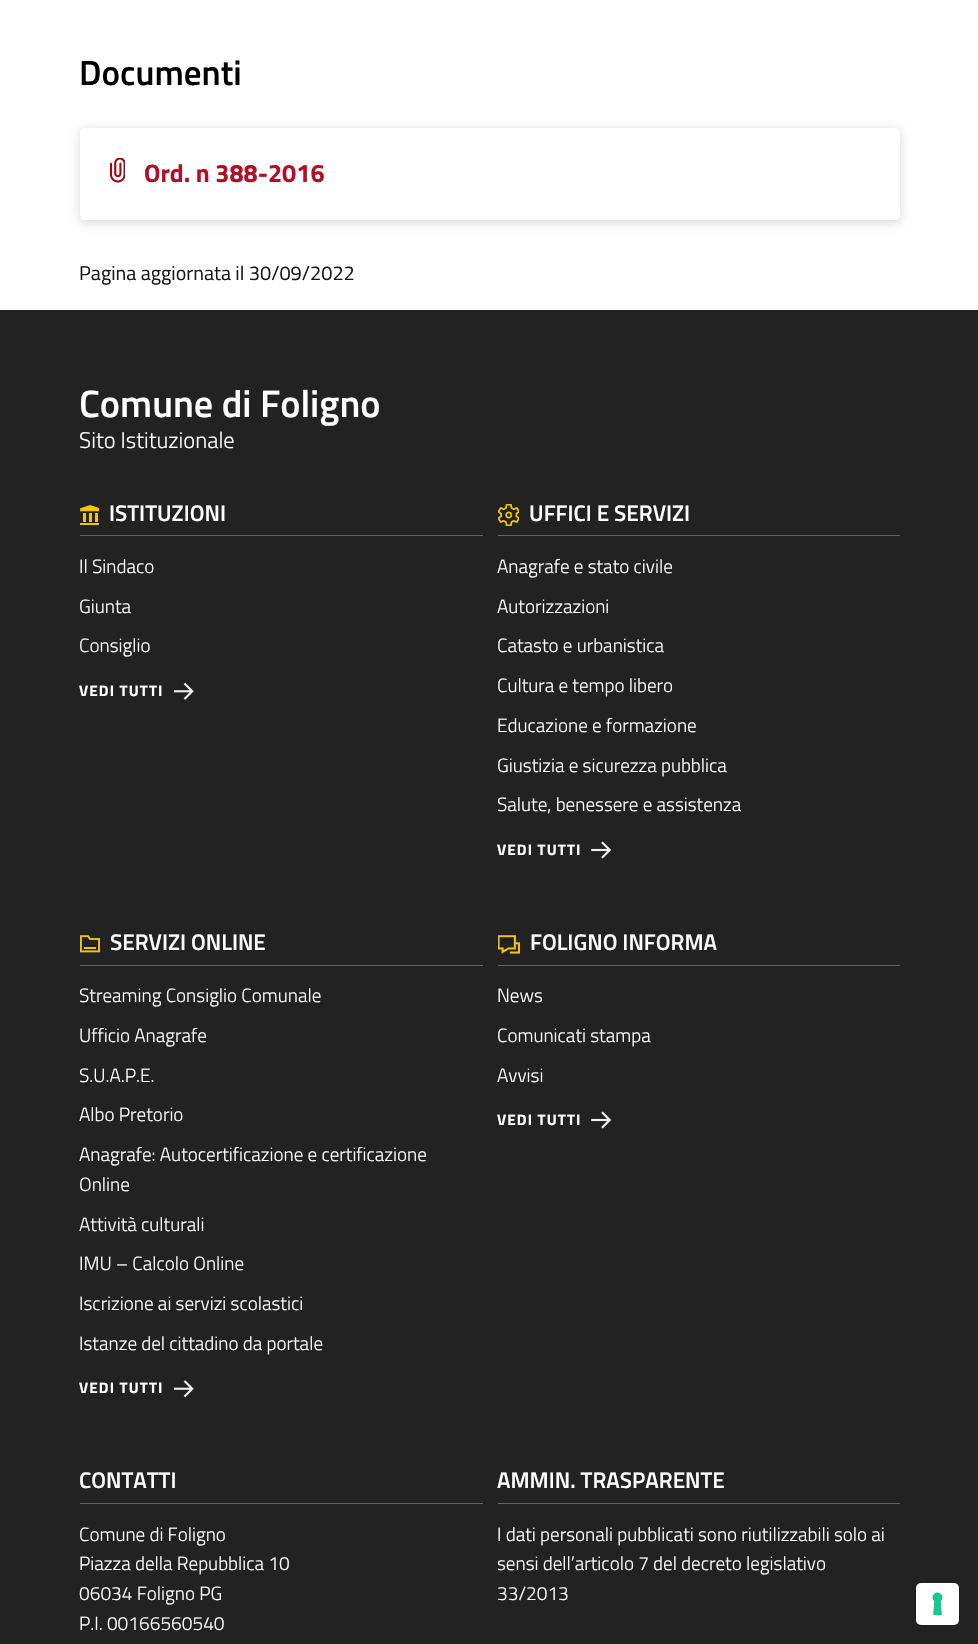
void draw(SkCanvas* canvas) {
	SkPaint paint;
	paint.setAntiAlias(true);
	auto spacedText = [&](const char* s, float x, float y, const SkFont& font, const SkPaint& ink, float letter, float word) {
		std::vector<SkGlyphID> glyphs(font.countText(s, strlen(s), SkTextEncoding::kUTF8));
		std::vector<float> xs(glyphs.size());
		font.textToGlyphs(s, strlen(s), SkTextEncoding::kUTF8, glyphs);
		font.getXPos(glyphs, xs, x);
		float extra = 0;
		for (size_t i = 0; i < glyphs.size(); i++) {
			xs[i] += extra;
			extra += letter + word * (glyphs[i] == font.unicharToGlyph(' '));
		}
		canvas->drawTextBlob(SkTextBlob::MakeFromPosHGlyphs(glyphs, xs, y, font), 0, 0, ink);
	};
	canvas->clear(0xffffffff);
	SkFont f1(fontMgr->matchFamilyStyle("Titillium Web", SkFontStyle(600, SkFontStyle::kNormal_Width, SkFontStyle::kUpright_Slant)), 35);
	f1.setSubpixel(true);
	paint.setColor(0xff000000);
	canvas->drawString("Documenti", 79, 85, f1, paint);
	paint.setColor(0x26000000);
	paint.setMaskFilter(SkMaskFilter::MakeBlur(kNormal_SkBlurStyle, 5.5));
	canvas->drawRoundRect(SkRect::MakeXYWH(80, 130, 820, 93), 5, 5, paint);
	paint.setMaskFilter(nullptr);
	paint.setColor(0xffffffff);
	canvas->drawRoundRect(SkRect::MakeXYWH(80, 128, 820, 92), 5, 5, paint);
	canvas->drawImageRect(SkImages::DeferredFromEncodedData(SkData::MakeFromFileName("img1.png")), SkRect::MakeXYWH(110, 158, 15, 25), SkSamplingOptions());
	SkFont f2(fontMgr->matchFamilyStyle("Titillium Web", SkFontStyle::Bold()), 25.25);
	f2.setSubpixel(true);
	paint.setColor(0xffb11026);
	canvas->drawString("Ord. n 388-2016", 144, 182, f2, paint);
	SkFont f3(fontMgr->matchFamilyStyle("Titillium Web", SkFontStyle::Normal()), 20);
	f3.setSubpixel(true);
	paint.setColor(0xff19191a);
	canvas->drawString("Pagina aggiornata il 30/09/2022", 79, 280, f3, paint);
	paint.setColor(0xff232222);
	canvas->drawRect(SkRect::MakeXYWH(0, 310, 978, 1334), paint);
	SkFont f4(fontMgr->matchFamilyStyle("Titillium Web", SkFontStyle(600, SkFontStyle::kNormal_Width, SkFontStyle::kUpright_Slant)), 38.25);
	f4.setSubpixel(true);
	paint.setColor(0xffffffff);
	canvas->drawString("Comune di Foligno", 79, 417, f4, paint);
	SkFont f5(fontMgr->matchFamilyStyle("Titillium Web", SkFontStyle(300, SkFontStyle::kNormal_Width, SkFontStyle::kUpright_Slant)), 22.5);
	f5.setSubpixel(true);
	canvas->drawString("Sito Istituzionale", 79, 448, f5, paint);
	paint.setColor(0xff656464);
	canvas->drawRect(SkRect::MakeXYWH(80, 535, 403, 1), paint);
	canvas->drawImageRect(SkImages::DeferredFromEncodedData(SkData::MakeFromFileName("img2.png")), SkRect::MakeXYWH(80, 505, 19, 20), SkSamplingOptions());
	SkFont f6(fontMgr->matchFamilyStyle("Titillium Web", SkFontStyle(600, SkFontStyle::kNormal_Width, SkFontStyle::kUpright_Slant)), 22.5);
	f6.setSubpixel(true);
	paint.setColor(0xffffffff);
	canvas->drawString("ISTITUZIONI", 109, 521, f6, paint);
	SkFont f7(fontMgr->matchFamilyStyle("Titillium Web", SkFontStyle(300, SkFontStyle::kNormal_Width, SkFontStyle::kUpright_Slant)), 19.1);
	f7.setSubpixel(true);
	canvas->drawString("Il Sindaco", 79, 573, f7, paint);
	canvas->drawString("Giunta", 79, 613, f7, paint);
	canvas->drawString("Consiglio", 79, 652, f7, paint);
	SkFont f8(fontMgr->matchFamilyStyle("Titillium Web", SkFontStyle::Bold()), 15.25);
	f8.setSubpixel(true);
	spacedText("VEDI TUTTI", 79, 696, f8, paint, 1.1, 0);
	canvas->drawImageRect(SkImages::DeferredFromEncodedData(SkData::MakeFromFileName("img3.png")), SkRect::MakeXYWH(174, 682, 20, 18), SkSamplingOptions());
	paint.setColor(0xff656464);
	canvas->drawRect(SkRect::MakeXYWH(498, 535, 402, 1), paint);
	canvas->drawImageRect(SkImages::DeferredFromEncodedData(SkData::MakeFromFileName("img4.png")), SkRect::MakeXYWH(498, 504, 21, 22), SkSamplingOptions());
	paint.setColor(0xffffffff);
	canvas->drawString("UFFICI E SERVIZI", 529, 521, f6, paint);
	canvas->drawString("Anagrafe e stato civile", 497, 573, f7, paint);
	canvas->drawString("Autorizzazioni", 497, 613, f7, paint);
	canvas->drawString("Catasto e urbanistica", 497, 652, f7, paint);
	canvas->drawString("Cultura e tempo libero", 497, 692, f7, paint);
	canvas->drawString("Educazione e formazione", 497, 732, f7, paint);
	canvas->drawString("Giustizia e sicurezza pubblica", 497, 772, f7, paint);
	canvas->drawString("Salute, benessere e assistenza", 497, 811, f7, paint);
	spacedText("VEDI TUTTI", 497, 855, f8, paint, 1.1, 0);
	canvas->drawImageRect(SkImages::DeferredFromEncodedData(SkData::MakeFromFileName("img5.png")), SkRect::MakeXYWH(591, 841, 20, 18), SkSamplingOptions());
	paint.setColor(0xff656464);
	canvas->drawRect(SkRect::MakeXYWH(80, 965, 403, 1), paint);
	canvas->drawImageRect(SkImages::DeferredFromEncodedData(SkData::MakeFromFileName("img6.png")), SkRect::MakeXYWH(80, 935, 20, 18), SkSamplingOptions());
	paint.setColor(0xffffffff);
	canvas->drawString("SERVIZI ONLINE", 110, 950, f6, paint);
	canvas->drawString("Streaming Consiglio Comunale", 79, 1002, f7, paint);
	canvas->drawString("Ufficio Anagrafe", 79, 1042, f7, paint);
	canvas->drawString("S.U.A.P.E.", 79, 1082, f7, paint);
	canvas->drawString("Albo Pretorio", 79, 1121, f7, paint);
	canvas->drawString("Anagrafe: Autocertificazione e certificazione", 79, 1161, f7, paint);
	canvas->drawString("Online", 79, 1191, f7, paint);
	canvas->drawString("Attività culturali", 79, 1231, f7, paint);
	canvas->drawString("IMU – Calcolo Online", 79, 1270, f7, paint);
	canvas->drawString("Iscrizione ai servizi scolastici", 79, 1310, f7, paint);
	canvas->drawString("Istanze del cittadino da portale", 79, 1350, f7, paint);
	spacedText("VEDI TUTTI", 79, 1393, f8, paint, 1.1, 0);
	canvas->drawImageRect(SkImages::DeferredFromEncodedData(SkData::MakeFromFileName("img7.png")), SkRect::MakeXYWH(174, 1380, 20, 18), SkSamplingOptions());
	paint.setColor(0xff656464);
	canvas->drawRect(SkRect::MakeXYWH(498, 965, 402, 1), paint);
	canvas->drawImageRect(SkImages::DeferredFromEncodedData(SkData::MakeFromFileName("img8.png")), SkRect::MakeXYWH(498, 935, 22, 19), SkSamplingOptions());
	paint.setColor(0xffffffff);
	canvas->drawString("FOLIGNO INFORMA", 530, 950, f6, paint);
	canvas->drawString("News", 497, 1002, f7, paint);
	canvas->drawString("Comunicati stampa", 497, 1042, f7, paint);
	canvas->drawString("Avvisi", 497, 1082, f7, paint);
	spacedText("VEDI TUTTI", 497, 1125, f8, paint, 1.1, 0);
	canvas->drawImageRect(SkImages::DeferredFromEncodedData(SkData::MakeFromFileName("img5.png")), SkRect::MakeXYWH(591, 1111, 20, 18), SkSamplingOptions());
	paint.setColor(0xff656464);
	canvas->drawRect(SkRect::MakeXYWH(80, 1503, 403, 1), paint);
	paint.setColor(0xffffffff);
	canvas->drawString("CONTATTI", 79, 1488, f6, paint);
	canvas->drawString("Comune di Foligno", 79, 1541, f7, paint);
	canvas->drawString("Piazza della Repubblica 10", 79, 1570, f7, paint);
	canvas->drawString("06034 Foligno PG", 79, 1600, f7, paint);
	canvas->drawString("P.I. 00166560540", 79, 1630, f7, paint);
	paint.setColor(0xff656464);
	canvas->drawRect(SkRect::MakeXYWH(498, 1503, 402, 1), paint);
	paint.setColor(0xffffffff);
	canvas->drawString("AMMIN. TRASPARENTE", 497, 1488, f6, paint);
	canvas->drawString("I dati personali pubblicati sono riutilizzabili solo ai", 497, 1541, f7, paint);
	canvas->drawString("sensi dell’articolo 7 del decreto legislativo", 497, 1570, f7, paint);
	canvas->drawString("33/2013", 497, 1600, f7, paint);
	paint.setStroke(true);
	paint.setStrokeWidth(1);
	paint.setColor(0xff1e1d1d);
	canvas->drawRoundRect(SkRect::MakeXYWH(915.5, 1581.5, 44, 44), 5.5, 5.5, paint);
	paint.setStroke(false);
	paint.setColor(0xffffffff);
	canvas->drawRoundRect(SkRect::MakeXYWH(916, 1583, 43, 42), 5, 5, paint);
	canvas->drawImageRect(SkImages::DeferredFromEncodedData(SkData::MakeFromFileName("img9.png")), SkRect::MakeXYWH(932, 1592, 11, 23), SkSamplingOptions());
}
